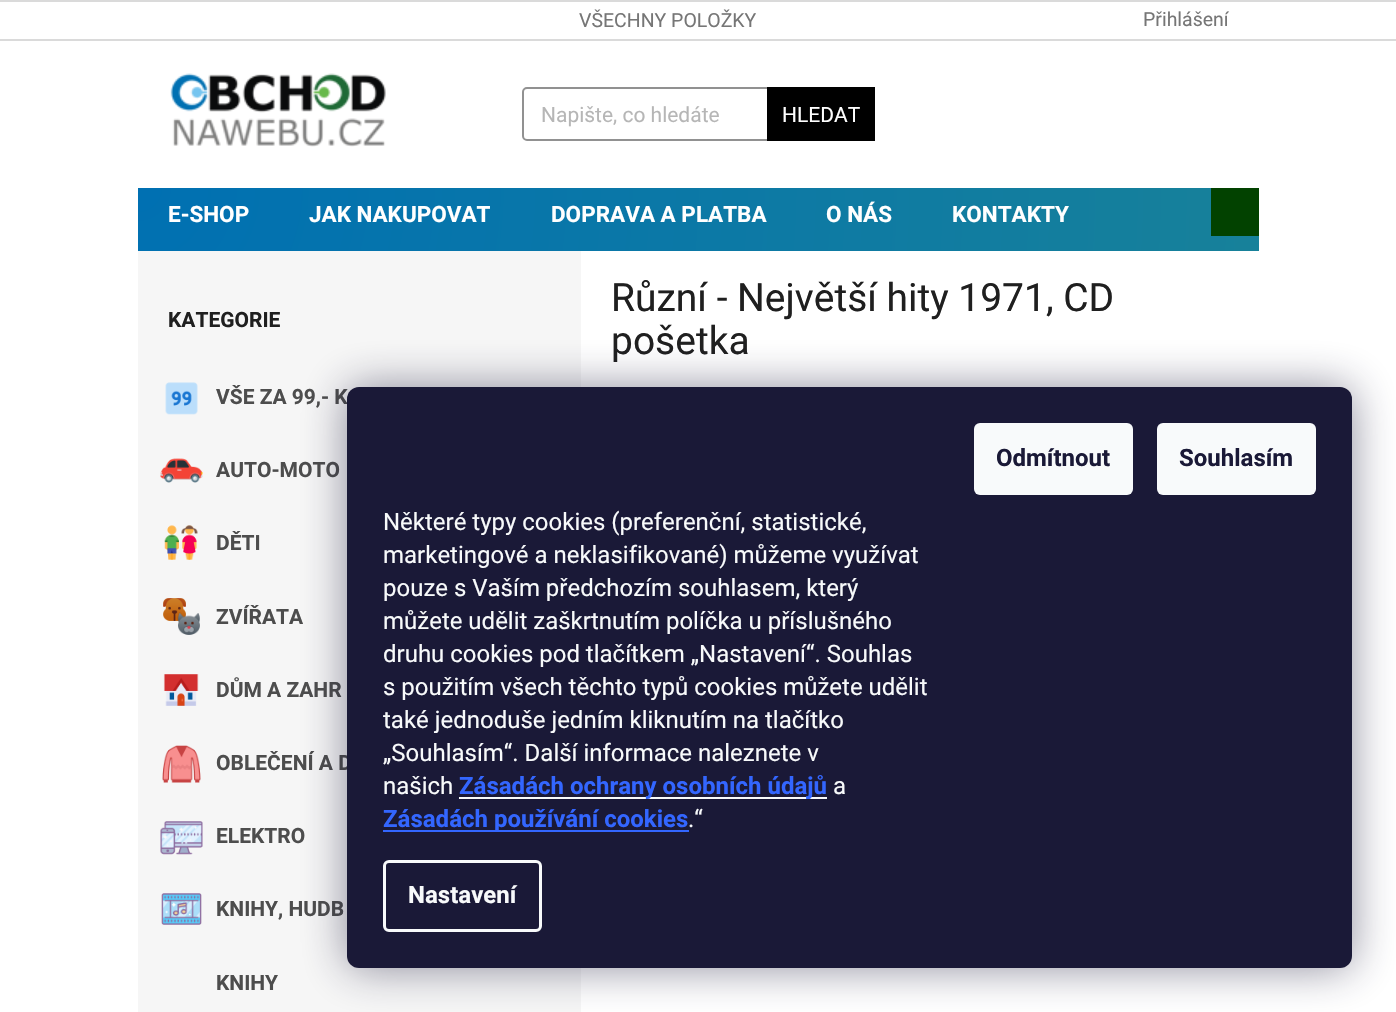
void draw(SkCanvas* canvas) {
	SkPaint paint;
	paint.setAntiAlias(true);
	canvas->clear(0xffffffff);
	paint.setColor(0xffdadada);
	canvas->drawRect(SkRect::MakeXYWH(0, 0, 1396, 2), paint);
	canvas->drawRect(SkRect::MakeXYWH(0, 39, 1396, 2), paint);
	SkFont f1(fontMgr->matchFamilyStyle("Roboto", SkFontStyle::Normal()), 19.5);
	f1.setSubpixel(true);
	paint.setColor(0xff767676);
	canvas->drawString("VŠECHNY POLOŽKY", 579, 27, f1, paint);
	canvas->drawString("Přihlášení", 1143, 26, f1, paint);
	canvas->drawImageRect(SkImages::DeferredFromEncodedData(SkData::MakeFromFileName("img1.png")), SkRect::MakeXYWH(170, 73, 216, 74), SkSamplingOptions());
	paint.setStroke(true);
	paint.setStrokeWidth(2);
	paint.setColor(0xff919191);
	canvas->drawRoundRect(SkRect::MakeXYWH(523, 88, 351, 52), 4, 4, paint);
	SkFont f2(fontMgr->matchFamilyStyle("Roboto", SkFontStyle::Normal()), 21);
	f2.setSubpixel(true);
	paint.setStroke(false);
	paint.setColor(0xffb6b6b6);
	canvas->drawString("Napište, co hledáte", 541, 122, f2, paint);
	paint.setColor(0xff000000);
	canvas->drawRect(SkRect::MakeXYWH(767, 87, 108, 54), paint);
	paint.setColor(0xffffffff);
	canvas->drawString("HLEDAT", 782, 122, f2, paint);
	{
		const SkColor colors[] = {0xff0070b2, 0xff17819a};
		const float stops[] = {0, 1};
		paint.setShader(SkGradientShader::MakeRadial({138, 188}, 1122, colors, stops, 2, SkTileMode::kClamp));
		paint.setAlpha(255);
	}
	canvas->drawRect(SkRect::MakeXYWH(138, 188, 1121, 63), paint);
	SkFont f3(fontMgr->matchFamilyStyle("Roboto", SkFontStyle::Bold()), 22.5);
	f3.setSubpixel(true);
	paint.setShader(nullptr);
	paint.setColor(0xffffffff);
	canvas->drawString("E-SHOP", 168, 222, f3, paint);
	canvas->drawString("JAK NAKUPOVAT", 309, 222, f3, paint);
	canvas->drawString("DOPRAVA A PLATBA", 551, 222, f3, paint);
	canvas->drawString("O NÁS", 826, 222, f3, paint);
	canvas->drawString("KONTAKTY", 952, 222, f3, paint);
	paint.setColor(0xff024200);
	canvas->drawRect(SkRect::MakeXYWH(1211, 188, 48, 48), paint);
	paint.setColor(0xfff6f6f6);
	canvas->drawRect(SkRect::MakeXYWH(138, 251, 443, 761), paint);
	SkFont f4(fontMgr->matchFamilyStyle("Roboto", SkFontStyle::Bold()), 21);
	f4.setSubpixel(true);
	paint.setColor(0xff1f1f1f);
	canvas->drawString("KATEGORIE", 168, 327, f4, paint);
	canvas->drawImageRect(SkImages::DeferredFromEncodedData(SkData::MakeFromFileName("img2.png")), SkRect::MakeXYWH(165, 382, 33, 33), SkSamplingOptions());
	paint.setColor(0xff4d4d4d);
	canvas->drawString("VŠE ZA 99,- K", 216, 404, f4, paint);
	canvas->drawImageRect(SkImages::DeferredFromEncodedData(SkData::MakeFromFileName("img3.png")), SkRect::MakeXYWH(160, 458, 43, 25), SkSamplingOptions());
	canvas->drawString("AUTO-MOTO", 216, 477, f4, paint);
	canvas->drawImageRect(SkImages::DeferredFromEncodedData(SkData::MakeFromFileName("img4.png")), SkRect::MakeXYWH(164, 525, 34, 35), SkSamplingOptions());
	canvas->drawString("DĚTI", 216, 550, f4, paint);
	canvas->drawImageRect(SkImages::DeferredFromEncodedData(SkData::MakeFromFileName("img5.png")), SkRect::MakeXYWH(163, 598, 37, 37), SkSamplingOptions());
	canvas->drawString("ZVÍŘATA", 216, 624, f4, paint);
	canvas->drawImageRect(SkImages::DeferredFromEncodedData(SkData::MakeFromFileName("img6.png")), SkRect::MakeXYWH(163, 674, 36, 32), SkSamplingOptions());
	canvas->drawString("DŮM A ZAHR", 216, 697, f4, paint);
	canvas->drawImageRect(SkImages::DeferredFromEncodedData(SkData::MakeFromFileName("img7.png")), SkRect::MakeXYWH(162, 745, 39, 38), SkSamplingOptions());
	canvas->drawString("OBLEČENÍ A D", 216, 770, f4, paint);
	canvas->drawImageRect(SkImages::DeferredFromEncodedData(SkData::MakeFromFileName("img8.png")), SkRect::MakeXYWH(160, 821, 43, 34), SkSamplingOptions());
	canvas->drawString("ELEKTRO", 216, 843, f4, paint);
	canvas->drawImageRect(SkImages::DeferredFromEncodedData(SkData::MakeFromFileName("img9.png")), SkRect::MakeXYWH(161, 893, 41, 32), SkSamplingOptions());
	canvas->drawString("KNIHY, HUDB", 216, 916, f4, paint);
	canvas->drawString("KNIHY", 216, 990, f4, paint);
	SkFont f5(fontMgr->matchFamilyStyle("Roboto", SkFontStyle::Normal()), 39);
	f5.setSubpixel(true);
	paint.setColor(0xff1f1f1f);
	canvas->drawString("Různí - Největší hity 1971, CD", 611, 311, f5, paint);
	canvas->drawString("pošetka", 611, 354, f5, paint);
	paint.setColor(0x801b1939);
	paint.setMaskFilter(SkMaskFilter::MakeBlur(kNormal_SkBlurStyle, 22.5));
	canvas->drawRoundRect(SkRect::MakeXYWH(347, 387, 1005, 581), 12, 12, paint);
	paint.setMaskFilter(nullptr);
	paint.setColor(0xff1a1937);
	canvas->drawRoundRect(SkRect::MakeXYWH(347, 387, 1005, 581), 12, 12, paint);
	paint.setColor(0xfff8fafb);
	canvas->drawRoundRect(SkRect::MakeXYWH(974, 423, 159, 72), 6, 6, paint);
	SkFont f6(fontMgr->matchFamilyStyle("Roboto", SkFontStyle::Bold()), 24);
	f6.setSubpixel(true);
	paint.setColor(0xff1a1937);
	canvas->drawString("Odmítnout", 996, 466, f6, paint);
	paint.setColor(0xfff8fafb);
	canvas->drawRoundRect(SkRect::MakeXYWH(1157, 423, 159, 72), 6, 6, paint);
	paint.setColor(0xff1a1937);
	canvas->drawString("Souhlasím", 1179, 466, f6, paint);
	SkFont f7(fontMgr->matchFamilyStyle("Roboto", SkFontStyle::Normal()), 24);
	f7.setSubpixel(true);
	paint.setColor(0xfff8fafb);
	canvas->drawString("Některé typy cookies (preferenční, statistické,", 383, 530, f7, paint);
	canvas->drawString("marketingové a neklasifikované) můžeme využívat", 383, 563, f7, paint);
	canvas->drawString("pouze s Vaším předchozím souhlasem, který", 383, 596, f7, paint);
	canvas->drawString("můžete udělit zaškrtnutím políčka u příslušného", 383, 629, f7, paint);
	canvas->drawString("druhu cookies pod tlačítkem „Nastavení“. Souhlas", 383, 662, f7, paint);
	canvas->drawString("s použitím všech těchto typů cookies můžete udělit", 383, 695, f7, paint);
	canvas->drawString("také jednoduše jedním kliknutím na tlačítko", 383, 728, f7, paint);
	canvas->drawString("„Souhlasím“. Další informace naleznete v", 383, 761, f7, paint);
	canvas->drawString("našich", 383, 794, f7, paint);
	canvas->drawRect(SkRect::MakeXYWH(459, 797, 368, 2), paint);
	paint.setColor(0xff3366ff);
	canvas->drawString("Zásadách ochrany osobních údajů", 459, 794, f6, paint);
	paint.setColor(0xfff8fafb);
	canvas->drawString("a", 833, 794, f7, paint);
	paint.setColor(0xff3366ff);
	canvas->drawRect(SkRect::MakeXYWH(383, 830, 306, 2), paint);
	canvas->drawString("Zásadách používání cookies", 383, 827, f6, paint);
	paint.setColor(0xfff8fafb);
	canvas->drawString(".“", 688, 827, f7, paint);
	paint.setStroke(true);
	paint.setStrokeWidth(3);
	canvas->drawRoundRect(SkRect::MakeXYWH(384.5, 861.5, 156, 69), 4.5, 4.5, paint);
	paint.setStroke(false);
	canvas->drawString("Nastavení", 408, 903, f6, paint);
}
